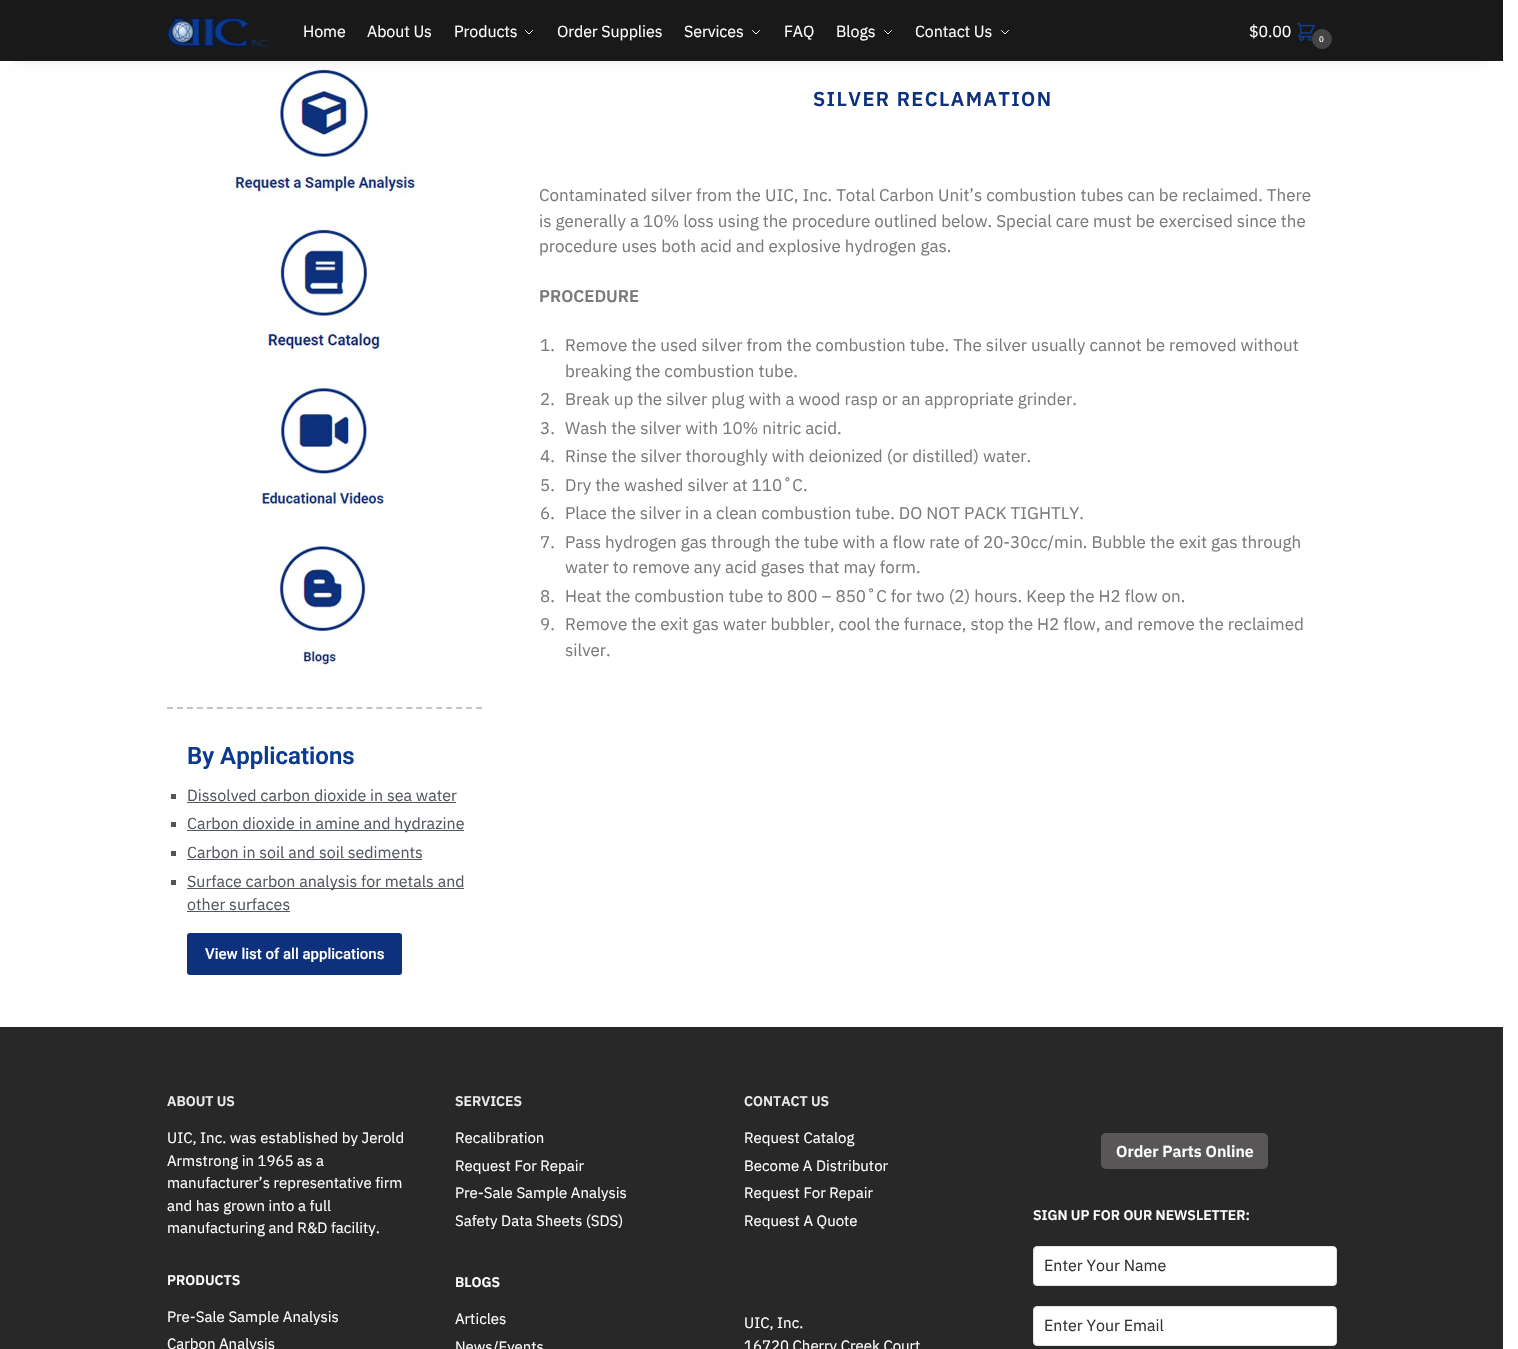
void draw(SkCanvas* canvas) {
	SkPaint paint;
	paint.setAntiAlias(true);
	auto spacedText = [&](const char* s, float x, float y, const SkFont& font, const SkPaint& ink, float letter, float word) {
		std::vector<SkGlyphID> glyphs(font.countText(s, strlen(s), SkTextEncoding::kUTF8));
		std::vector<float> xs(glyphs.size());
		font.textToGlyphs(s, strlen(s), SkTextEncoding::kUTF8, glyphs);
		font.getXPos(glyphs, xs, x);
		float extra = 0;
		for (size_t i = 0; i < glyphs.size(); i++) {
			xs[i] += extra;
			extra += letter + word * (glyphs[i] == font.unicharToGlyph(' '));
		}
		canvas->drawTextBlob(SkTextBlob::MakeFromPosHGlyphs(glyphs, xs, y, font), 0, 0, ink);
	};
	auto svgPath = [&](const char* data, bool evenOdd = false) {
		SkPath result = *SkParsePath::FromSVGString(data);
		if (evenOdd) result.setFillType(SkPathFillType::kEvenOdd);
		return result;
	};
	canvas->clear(0xffffffff);
	canvas->drawImageRect(SkImages::DeferredFromEncodedData(SkData::MakeFromFileName("img3.png")), SkRect::MakeXYWH(232, 66, 184, 128), SkSamplingOptions());
	paint.setColor(0x1a000000);
	paint.setMaskFilter(SkMaskFilter::MakeBlur(kNormal_SkBlurStyle, 5));
	canvas->drawRect(SkRect::MakeXYWH(15, 30, 1473, 31), paint);
	paint.setMaskFilter(nullptr);
	paint.setColor(0xff191919);
	canvas->drawRect(SkRect::MakeXYWH(0, 0, 1503, 61), paint);
	canvas->drawImageRect(SkImages::DeferredFromEncodedData(SkData::MakeFromFileName("img1.png")), SkRect::MakeXYWH(167, 17, 103, 30), SkSamplingOptions());
	SkFont f1(fontMgr->matchFamilyStyle("IBM Plex Sans", SkFontStyle::Normal()), 16);
	f1.setSubpixel(true);
	paint.setColor(0xffffffff);
	spacedText("Home", 303, 37, f1, paint, -0.1, 0);
	spacedText("About Us", 367, 37, f1, paint, -0.1, 0);
	spacedText("Products", 454, 37, f1, paint, -0.1, 0);
	paint.setStroke(true);
	paint.setStrokeWidth(1);
	paint.setStrokeCap(SkPaint::kRound_Cap);
	paint.setStrokeJoin(SkPaint::kRound_Join);
	canvas->drawPath(svgPath("M532.5 30.5L529 34L525.5 30.5"), paint);
	paint.setStroke(false);
	spacedText("Order Supplies", 557, 37, f1, paint, -0.1, 0);
	spacedText("Services", 684, 37, f1, paint, -0.1, 0);
	paint.setStroke(true);
	canvas->drawPath(svgPath("M759.5 30.5L756 34L752.5 30.5"), paint);
	paint.setStroke(false);
	spacedText("FAQ", 784, 37, f1, paint, -0.1, 0);
	spacedText("Blogs", 836, 37, f1, paint, -0.1, 0);
	paint.setStroke(true);
	canvas->drawPath(svgPath("M891.5 30.5L888 34L884.5 30.5"), paint);
	paint.setStroke(false);
	spacedText("Contact Us", 915, 37, f1, paint, -0.1, 0);
	paint.setStroke(true);
	canvas->drawPath(svgPath("M1008.5 30.5L1005 34L1001.5 30.5"), paint);
	paint.setStroke(false);
	spacedText("$0.00", 1249, 37, f1, paint, -0.1, 0);
	canvas->drawImageRect(SkImages::DeferredFromEncodedData(SkData::MakeFromFileName("img2.png")), SkRect::MakeXYWH(1297, 23, 18, 18), SkSamplingOptions());
	paint.setColor(0xff444444);
	canvas->drawCircle(1322, 39, 9.5, paint);
	paint.setStroke(true);
	paint.setStrokeCap(SkPaint::kButt_Cap);
	paint.setStrokeJoin(SkPaint::kMiter_Join);
	canvas->drawCircle(1322, 39, 9.5, paint);
	SkFont f2(fontMgr->matchFamilyStyle("IBM Plex Sans", SkFontStyle::Normal()), 8);
	f2.setSubpixel(true);
	paint.setStroke(false);
	paint.setColor(0xffffffff);
	spacedText("0", 1319, 42, f2, paint, -0.1, 0);
	SkFont f3(fontMgr->matchFamilyStyle("IBM Plex Sans", SkFontStyle(600, SkFontStyle::kNormal_Width, SkFontStyle::kUpright_Slant)), 20);
	f3.setSubpixel(true);
	paint.setColor(0xff0d317d);
	spacedText("SILVER RECLAMATION", 813, 106, f3, paint, 1.4, 0);
	SkFont f4(fontMgr->matchFamilyStyle("IBM Plex Sans", SkFontStyle::Normal()), 17);
	f4.setSubpixel(true);
	paint.setColor(0xff7a7a7a);
	canvas->drawString("Contaminated silver from the UIC, Inc. Total Carbon Unit’s combustion tubes can be reclaimed. There", 539, 201, f4, paint);
	canvas->drawString("is generally a 10% loss using the procedure outlined below. Special care must be exercised since the", 539, 227, f4, paint);
	canvas->drawString("procedure uses both acid and explosive hydrogen gas.", 539, 252, f4, paint);
	SkFont f5(fontMgr->matchFamilyStyle("IBM Plex Sans", SkFontStyle(600, SkFontStyle::kNormal_Width, SkFontStyle::kUpright_Slant)), 17);
	f5.setSubpixel(true);
	canvas->drawString("PROCEDURE", 539, 302, f5, paint);
	canvas->drawString("1.", 540, 351, f4, paint);
	canvas->drawString("Remove the used silver from the combustion tube. The silver usually cannot be removed without", 565, 351, f4, paint);
	canvas->drawString("breaking the combustion tube.", 565, 377, f4, paint);
	canvas->drawString("2.", 540, 405, f4, paint);
	canvas->drawString("Break up the silver plug with a wood rasp or an appropriate grinder.", 565, 405, f4, paint);
	canvas->drawString("3.", 540, 434, f4, paint);
	canvas->drawString("Wash the silver with 10% nitric acid.", 565, 434, f4, paint);
	canvas->drawString("4.", 540, 462, f4, paint);
	canvas->drawString("Rinse the silver thoroughly with deionized (or distilled) water.", 565, 462, f4, paint);
	canvas->drawString("5.", 540, 491, f4, paint);
	canvas->drawString("Dry the washed silver at 110˚C.", 565, 491, f4, paint);
	canvas->drawString("6.", 540, 519, f4, paint);
	canvas->drawString("Place the silver in a clean combustion tube. DO NOT PACK TIGHTLY.", 565, 519, f4, paint);
	canvas->drawString("7.", 540, 548, f4, paint);
	canvas->drawString("Pass hydrogen gas through the tube with a flow rate of 20-30cc/min. Bubble the exit gas through", 565, 548, f4, paint);
	canvas->drawString("water to remove any acid gases that may form.", 565, 573, f4, paint);
	canvas->drawString("8.", 540, 602, f4, paint);
	canvas->drawString("Heat the combustion tube to 800 – 850˚C for two (2) hours. Keep the H2 flow on.", 565, 602, f4, paint);
	canvas->drawString("9.", 540, 630, f4, paint);
	canvas->drawString("Remove the exit gas water bubbler, cool the furnace, stop the H2 flow, and remove the reclaimed", 565, 630, f4, paint);
	canvas->drawString("silver.", 565, 656, f4, paint);
	paint.setStroke(true);
	paint.setStrokeWidth(2);
	paint.setColor(0xffc4c4c4);
	paint.setPathEffect(SkDashPathEffect::Make({{6, 3.97f}}, 0));
	canvas->drawPath(svgPath("M167 708H482"), paint);
	paint.setPathEffect(nullptr);
	canvas->drawImageRect(SkImages::DeferredFromEncodedData(SkData::MakeFromFileName("img4.png")), SkRect::MakeXYWH(264, 224, 120, 128), SkSamplingOptions());
	canvas->drawImageRect(SkImages::DeferredFromEncodedData(SkData::MakeFromFileName("img5.png")), SkRect::MakeXYWH(260, 383, 125, 127), SkSamplingOptions());
	canvas->drawImageRect(SkImages::DeferredFromEncodedData(SkData::MakeFromFileName("img6.png")), SkRect::MakeXYWH(279, 541, 89, 127), SkSamplingOptions());
	SkFont f6(fontMgr->matchFamilyStyle("Roboto", SkFontStyle(600, SkFontStyle::kNormal_Width, SkFontStyle::kUpright_Slant)), 24);
	f6.setSubpixel(true);
	paint.setStroke(false);
	paint.setColor(0xff0b3b91);
	canvas->drawString("By Applications", 187, 764, f6, paint);
	paint.setColor(0xff555555);
	canvas->drawRect(SkRect::MakeXYWH(171, 794, 5, 5), paint);
	paint.setColor(0xff54595f);
	canvas->drawString("Dissolved carbon dioxide in sea water", 187, 801, f1, paint);
	canvas->drawRect(SkRect::MakeXYWH(187, 802, 269, 1), paint);
	paint.setColor(0xff555555);
	canvas->drawRect(SkRect::MakeXYWH(171, 822, 5, 5), paint);
	paint.setColor(0xff54595f);
	canvas->drawRect(SkRect::MakeXYWH(187, 830, 277, 1), paint);
	canvas->drawString("Carbon dioxide in amine and hydrazine", 187, 829, f1, paint);
	paint.setColor(0xff555555);
	canvas->drawRect(SkRect::MakeXYWH(171, 851, 5, 5), paint);
	paint.setColor(0xff54595f);
	canvas->drawString("Carbon in soil and soil sediments", 187, 858, f1, paint);
	canvas->drawRect(SkRect::MakeXYWH(187, 859, 235, 1), paint);
	paint.setColor(0xff555555);
	canvas->drawRect(SkRect::MakeXYWH(171, 880, 5, 5), paint);
	paint.setColor(0xff54595f);
	canvas->drawRect(SkRect::MakeXYWH(187, 888, 277, 1), paint);
	canvas->drawString("Surface carbon analysis for metals and", 187, 887, f1, paint);
	canvas->drawString("other surfaces", 187, 910, f1, paint);
	canvas->drawRect(SkRect::MakeXYWH(187, 911, 103, 1), paint);
	paint.setColor(0xff0d317d);
	canvas->drawRoundRect(SkRect::MakeXYWH(187, 933, 215, 42), 3, 3, paint);
	SkFont f7(fontMgr->matchFamilyStyle("Roboto", SkFontStyle(500, SkFontStyle::kNormal_Width, SkFontStyle::kUpright_Slant)), 15);
	f7.setSubpixel(true);
	paint.setColor(0xffffffff);
	canvas->drawString("View list of all applications", 205, 959, f7, paint);
	paint.setColor(0xff282828);
	canvas->drawRect(SkRect::MakeXYWH(0, 1027, 1503, 322), paint);
	SkFont f8(fontMgr->matchFamilyStyle("IBM Plex Sans", SkFontStyle(600, SkFontStyle::kNormal_Width, SkFontStyle::kUpright_Slant)), 14);
	f8.setSubpixel(true);
	paint.setColor(0xffeaeaea);
	canvas->drawString("ABOUT US", 167, 1106, f8, paint);
	SkFont f9(fontMgr->matchFamilyStyle("IBM Plex Sans", SkFontStyle::Normal()), 15);
	f9.setSubpixel(true);
	paint.setColor(0xffffffff);
	canvas->drawString("UIC, Inc. was established by Jerold", 167, 1143, f9, paint);
	canvas->drawString("Armstrong in 1965 as a", 167, 1166, f9, paint);
	canvas->drawString("manufacturer’s representative firm", 167, 1188, f9, paint);
	canvas->drawString("and has grown into a full", 167, 1211, f9, paint);
	canvas->drawString("manufacturing and R&D facility.", 167, 1233, f9, paint);
	canvas->drawString("PRODUCTS", 167, 1285, f8, paint);
	canvas->drawString("Pre-Sale Sample Analysis", 167, 1322, f9, paint);
	canvas->drawString("Carbon Analysis", 167, 1349, f9, paint);
	paint.setColor(0xffeaeaea);
	canvas->drawString("SERVICES", 455, 1106, f8, paint);
	paint.setColor(0xffffffff);
	canvas->drawString("Recalibration", 455, 1143, f9, paint);
	canvas->drawString("Request For Repair", 455, 1171, f9, paint);
	canvas->drawString("Pre-Sale Sample Analysis", 455, 1198, f9, paint);
	canvas->drawString("Safety Data Sheets (SDS)", 455, 1226, f9, paint);
	canvas->drawString("BLOGS", 455, 1287, f8, paint);
	canvas->drawString("Articles", 455, 1324, f9, paint);
	canvas->drawString("News/Events", 455, 1352, f9, paint);
	paint.setColor(0xffeaeaea);
	canvas->drawString("CONTACT US", 744, 1106, f8, paint);
	paint.setColor(0xffffffff);
	canvas->drawString("Request Catalog", 744, 1143, f9, paint);
	canvas->drawString("Become A Distributor", 744, 1171, f9, paint);
	canvas->drawString("Request For Repair", 744, 1198, f9, paint);
	canvas->drawString("Request A Quote", 744, 1226, f9, paint);
	canvas->drawString("UIC, Inc.", 744, 1328, f9, paint);
	canvas->drawString("16720 Cherry Creek Court", 744, 1351, f9, paint);
	paint.setColor(0xff585656);
	canvas->drawRoundRect(SkRect::MakeXYWH(1101, 1133, 167, 36), 5, 5, paint);
	SkFont f10(fontMgr->matchFamilyStyle("IBM Plex Sans", SkFontStyle(600, SkFontStyle::kNormal_Width, SkFontStyle::kUpright_Slant)), 16);
	f10.setSubpixel(true);
	paint.setColor(0xffffffff);
	canvas->drawString("Order Parts Online", 1116, 1157, f10, paint);
	canvas->drawString("SIGN UP FOR OUR NEWSLETTER:", 1033, 1220, f8, paint);
	canvas->drawRoundRect(SkRect::MakeXYWH(1033.5, 1246.5, 303, 39), 3.5, 3.5, paint);
	paint.setStroke(true);
	paint.setStrokeWidth(1);
	paint.setColor(0xffe2e2e2);
	canvas->drawRoundRect(SkRect::MakeXYWH(1033.5, 1246.5, 303, 39), 3.5, 3.5, paint);
	paint.setStroke(false);
	paint.setColor(0xff323232);
	canvas->drawString("Enter Your Name", 1044, 1271, f1, paint);
	paint.setColor(0xffffffff);
	canvas->drawRoundRect(SkRect::MakeXYWH(1033.5, 1306.5, 303, 39), 3.5, 3.5, paint);
	paint.setStroke(true);
	paint.setColor(0xffe2e2e2);
	canvas->drawRoundRect(SkRect::MakeXYWH(1033.5, 1306.5, 303, 39), 3.5, 3.5, paint);
	paint.setStroke(false);
	paint.setColor(0xff323232);
	canvas->drawString("Enter Your Email", 1044, 1331, f1, paint);
}
